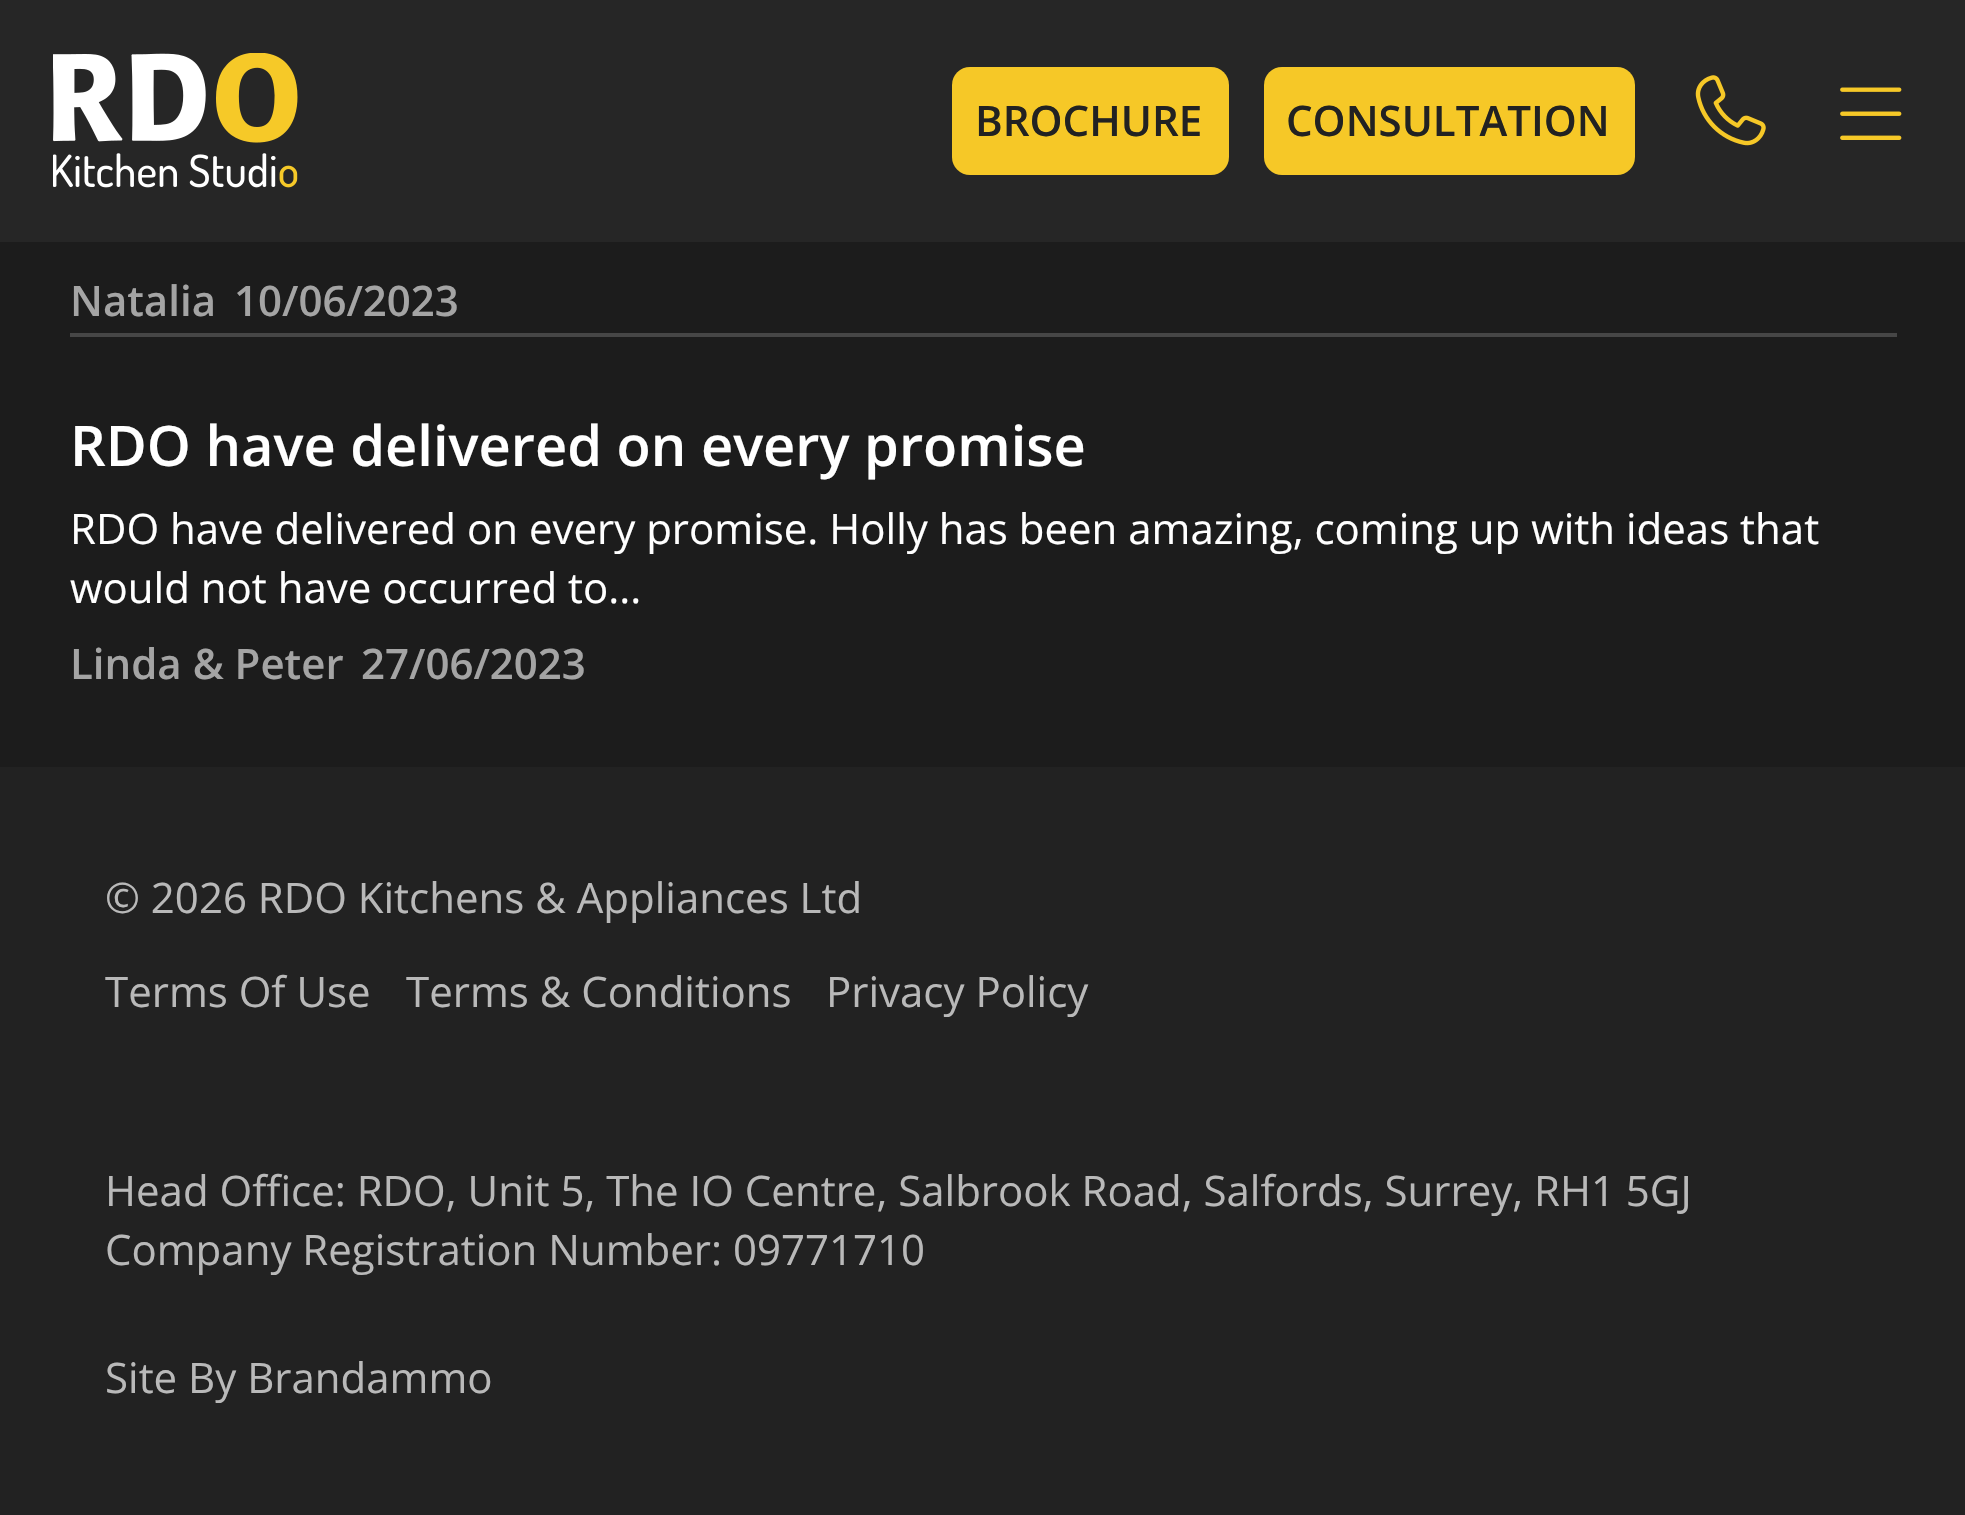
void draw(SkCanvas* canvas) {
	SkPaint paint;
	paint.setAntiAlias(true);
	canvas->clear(0xff1c1c1c);
	paint.setColor(0xff262626);
	canvas->drawRect(SkRect::MakeXYWH(0, 0, 1965, 242), paint);
	canvas->drawImageRect(SkImages::DeferredFromEncodedData(SkData::MakeFromFileName("img1.png")), SkRect::MakeXYWH(53, 53, 245, 135), SkSamplingOptions());
	paint.setColor(0xfff6c827);
	canvas->drawRoundRect(SkRect::MakeXYWH(952, 67, 277, 108), 18, 18, paint);
	SkFont f1(fontMgr->matchFamilyStyle("Open Sans", SkFontStyle(600, SkFontStyle::kNormal_Width, SkFontStyle::kUpright_Slant)), 42);
	f1.setSubpixel(true);
	paint.setColor(0xff222222);
	canvas->drawString("BROCHURE", 975, 136, f1, paint);
	paint.setColor(0xfff6c827);
	canvas->drawRoundRect(SkRect::MakeXYWH(1264, 67, 371, 108), 18, 18, paint);
	paint.setColor(0xff222222);
	canvas->drawString("CONSULTATION", 1286, 136, f1, paint);
	canvas->drawImageRect(SkImages::DeferredFromEncodedData(SkData::MakeFromFileName("img2.png")), SkRect::MakeXYWH(1695, 75, 71, 71), SkSamplingOptions());
	canvas->drawImageRect(SkImages::DeferredFromEncodedData(SkData::MakeFromFileName("img3.png")), SkRect::MakeXYWH(1840, 87, 62, 53), SkSamplingOptions());
	paint.setColor(0xffa4a4a4);
	canvas->drawString("Natalia", 70, 316, f1, paint);
	canvas->drawString("10/06/2023", 234, 316, f1, paint);
	paint.setColor(0xff464646);
	canvas->drawRect(SkRect::MakeXYWH(70, 333, 1827, 4), paint);
	SkFont f2(fontMgr->matchFamilyStyle("Open Sans", SkFontStyle(600, SkFontStyle::kNormal_Width, SkFontStyle::kUpright_Slant)), 56);
	f2.setSubpixel(true);
	paint.setColor(0xffffffff);
	canvas->drawString("RDO have delivered on every promise", 70, 466, f2, paint);
	SkFont f3(fontMgr->matchFamilyStyle("Open Sans", SkFontStyle::Normal()), 42);
	f3.setSubpixel(true);
	canvas->drawString("RDO have delivered on every promise. Holly has been amazing, coming up with ideas that", 70, 544, f3, paint);
	canvas->drawString("would not have occurred to...", 70, 603, f3, paint);
	paint.setColor(0xffa4a4a4);
	canvas->drawString("Linda & Peter", 70, 679, f1, paint);
	canvas->drawString("27/06/2023", 361, 679, f1, paint);
	paint.setColor(0xff222222);
	canvas->drawRect(SkRect::MakeXYWH(0, 767, 1965, 748), paint);
	paint.setColor(0xffb9b9b9);
	canvas->drawString("© 2026 RDO Kitchens & Appliances Ltd", 105, 913, f3, paint);
	canvas->drawString("Terms Of Use", 105, 1007, f3, paint);
	canvas->drawString("Terms & Conditions", 406, 1007, f3, paint);
	canvas->drawString("Privacy Policy", 826, 1007, f3, paint);
	canvas->drawString("Head Office: RDO, Unit 5, The IO Centre, Salbrook Road, Salfords, Surrey, RH1 5GJ", 105, 1206, f3, paint);
	canvas->drawString("Company Registration Number: 09771710", 105, 1265, f3, paint);
	canvas->drawString("Site By Brandammo", 105, 1393, f3, paint);
}
